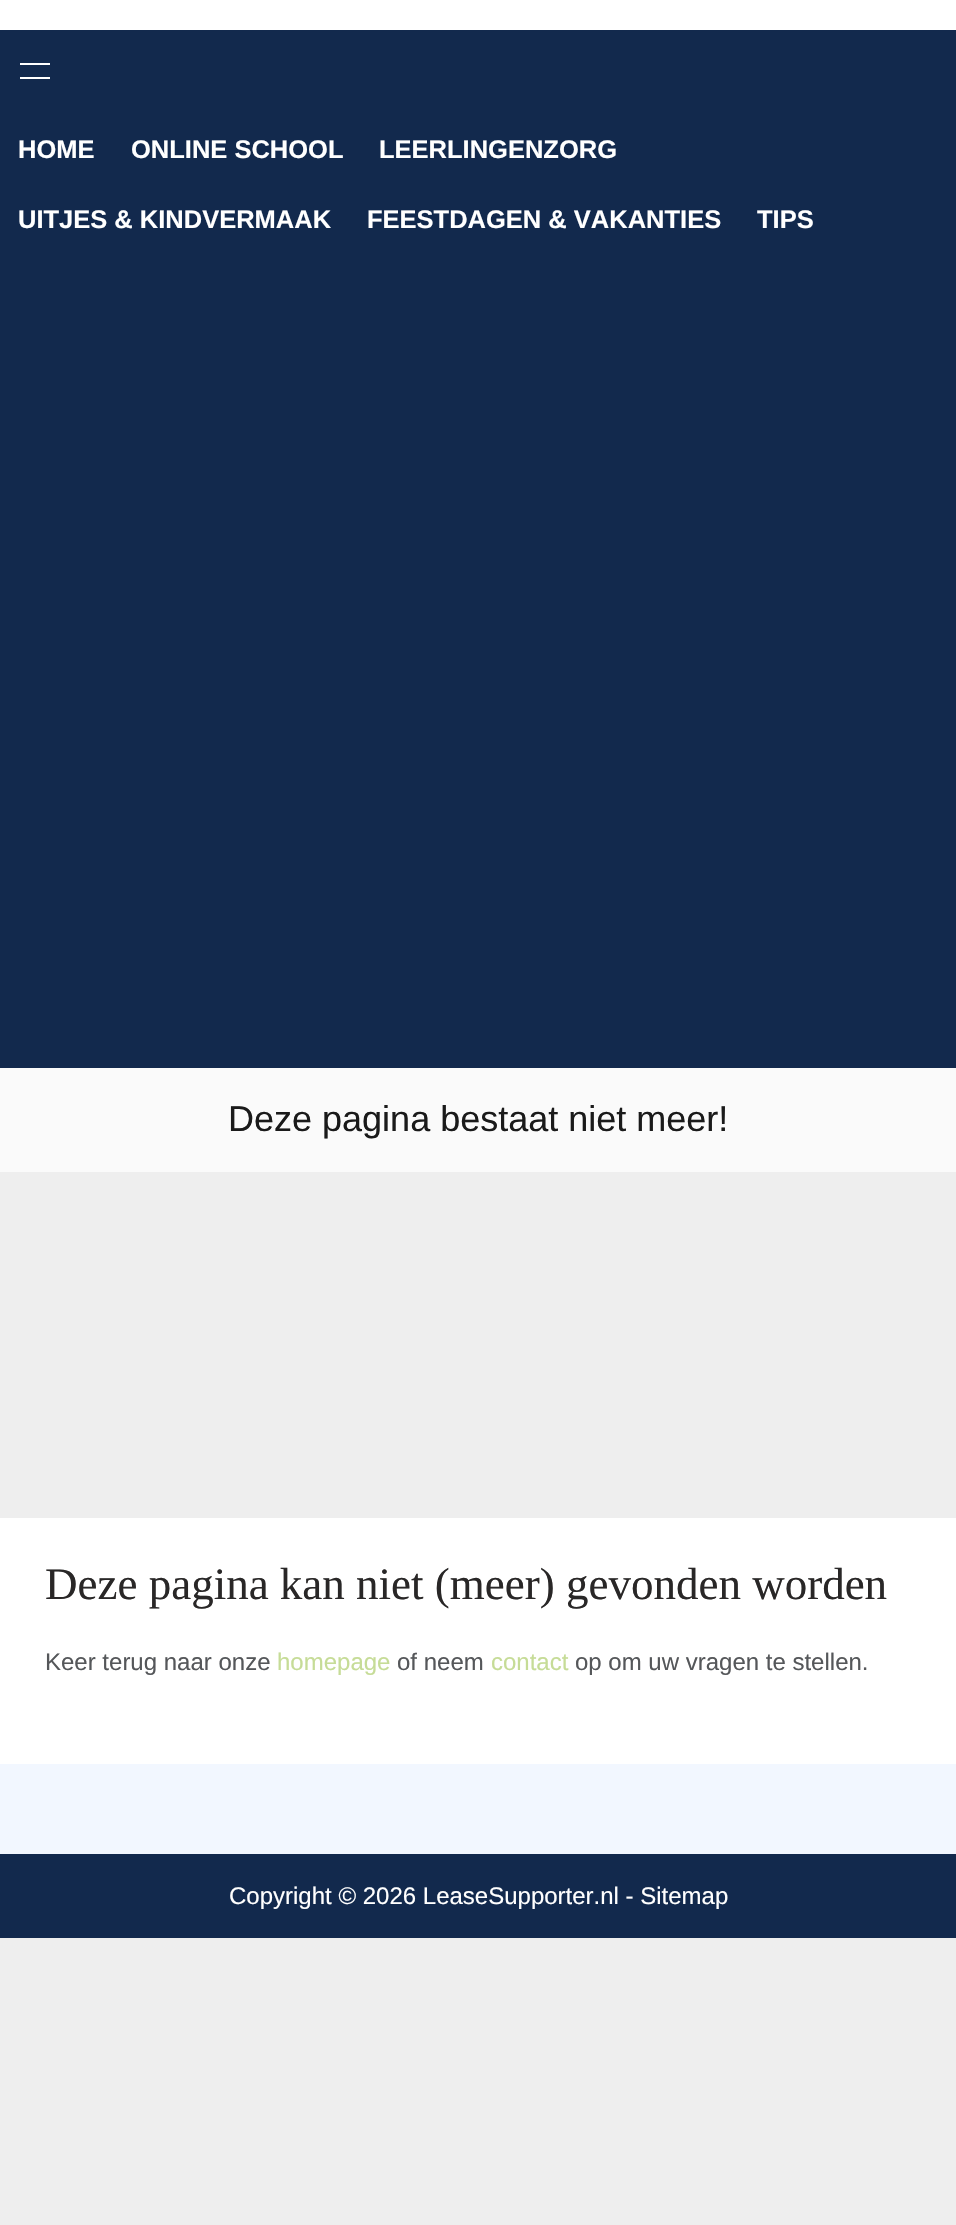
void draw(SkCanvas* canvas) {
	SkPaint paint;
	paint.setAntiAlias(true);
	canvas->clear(0xffeeeeee);
	paint.setColor(0xffffffff);
	canvas->drawRect(SkRect::MakeXYWH(0, 0, 956, 30), paint);
	paint.setColor(0xff12294d);
	canvas->drawRect(SkRect::MakeXYWH(0, 30, 956, 1038), paint);
	paint.setColor(0xffffffff);
	canvas->drawRect(SkRect::MakeXYWH(20, 63, 30, 2), paint);
	canvas->drawRect(SkRect::MakeXYWH(20, 77, 30, 2), paint);
	SkFont f1(fontMgr->matchFamilyStyle("Liberation Sans", SkFontStyle::Bold()), 25.5);
	f1.setSubpixel(true);
	canvas->drawString("HOME", 18, 158, f1, paint);
	canvas->drawString("ONLINE SCHOOL", 131, 158, f1, paint);
	canvas->drawString("LEERLINGENZORG", 379, 158, f1, paint);
	canvas->drawString("UITJES & KINDVERMAAK", 18, 228, f1, paint);
	canvas->drawString("FEESTDAGEN & VAKANTIES", 367, 228, f1, paint);
	canvas->drawString("TIPS", 757, 228, f1, paint);
	paint.setColor(0xfffafafa);
	canvas->drawRect(SkRect::MakeXYWH(0, 1068, 956, 104), paint);
	SkFont f2(fontMgr->matchFamilyStyle("Liberation Sans", SkFontStyle::Normal()), 36);
	f2.setSubpixel(true);
	paint.setColor(0xff1a1a1a);
	canvas->drawString("Deze pagina bestaat niet meer!", 228, 1131, f2, paint);
	paint.setColor(0xffffffff);
	canvas->drawRect(SkRect::MakeXYWH(0, 1518, 956, 246), paint);
	SkFont f3(fontMgr->matchFamilyStyle("Liberation Serif", SkFontStyle::Normal()), 45);
	f3.setSubpixel(true);
	paint.setColor(0xff292727);
	canvas->drawString("Deze pagina kan niet (meer) gevonden worden", 45, 1599, f3, paint);
	SkFont f4(fontMgr->matchFamilyStyle("Liberation Sans", SkFontStyle::Normal()), 24);
	f4.setSubpixel(true);
	paint.setColor(0xff55575a);
	canvas->drawString("Keer terug naar onze", 45, 1670, f4, paint);
	paint.setColor(0xffc6dc97);
	canvas->drawString("homepage", 277, 1670, f4, paint);
	paint.setColor(0xff55575a);
	canvas->drawString("of neem", 397, 1670, f4, paint);
	paint.setColor(0xffc6dc97);
	canvas->drawString("contact", 491, 1670, f4, paint);
	paint.setColor(0xff55575a);
	canvas->drawString("op om uw vragen te stellen.", 575, 1670, f4, paint);
	paint.setColor(0xfff2f7ff);
	canvas->drawRect(SkRect::MakeXYWH(0, 1764, 956, 90), paint);
	paint.setColor(0xff12294d);
	canvas->drawRect(SkRect::MakeXYWH(0, 1854, 956, 84), paint);
	paint.setColor(0xffffffff);
	canvas->drawString("Copyright © 2026 LeaseSupporter.nl - Sitemap", 229, 1904, f4, paint);
}
